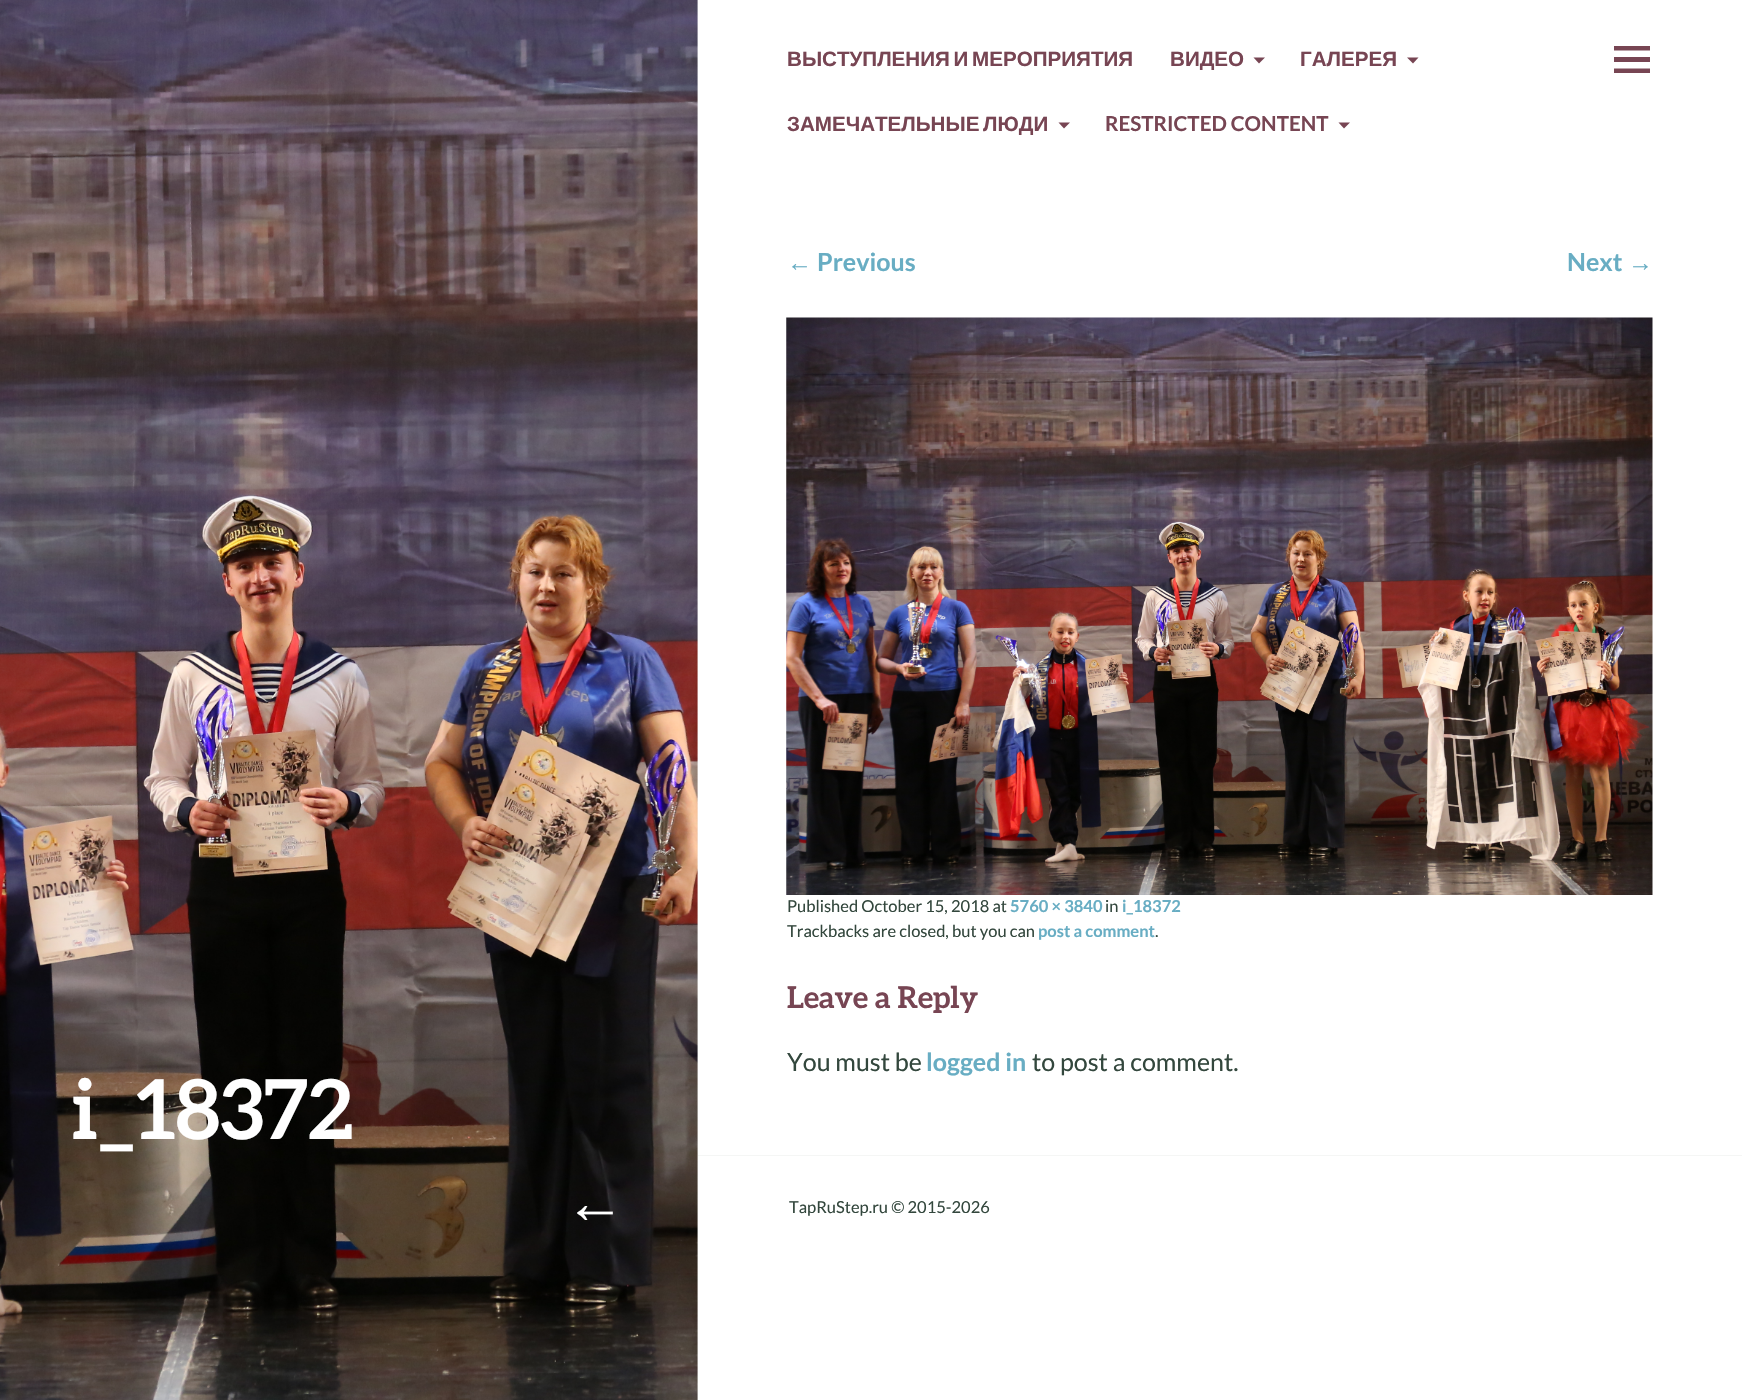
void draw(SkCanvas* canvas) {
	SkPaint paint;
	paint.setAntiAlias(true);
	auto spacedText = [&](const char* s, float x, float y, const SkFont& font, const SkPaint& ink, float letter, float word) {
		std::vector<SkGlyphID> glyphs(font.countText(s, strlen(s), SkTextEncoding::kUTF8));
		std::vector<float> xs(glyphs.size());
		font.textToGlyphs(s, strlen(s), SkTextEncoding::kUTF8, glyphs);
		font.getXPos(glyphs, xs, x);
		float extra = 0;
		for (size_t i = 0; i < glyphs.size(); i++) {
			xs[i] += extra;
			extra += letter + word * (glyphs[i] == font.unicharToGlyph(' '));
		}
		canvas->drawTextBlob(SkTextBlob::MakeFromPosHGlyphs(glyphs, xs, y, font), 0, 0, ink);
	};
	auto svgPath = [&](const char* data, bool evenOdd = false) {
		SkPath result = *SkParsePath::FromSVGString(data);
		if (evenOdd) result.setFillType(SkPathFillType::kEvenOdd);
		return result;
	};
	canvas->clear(0xffffffff);
	SkFont f1(fontMgr->matchFamilyStyle("Liberation Sans", SkFontStyle::Bold()), 20.6);
	f1.setSubpixel(true);
	paint.setColor(0xff774553);
	spacedText("ВЫСТУПЛЕНИЯ И МЕРОПРИЯТИЯ", 787, 66, f1, paint, 0, -2);
	canvas->drawString("ВИДЕО", 1170, 66, f1, paint);
	canvas->drawPath(svgPath("M1253.5 57.5L1259 63.5L1265 57.5Z"), paint);
	canvas->drawString("ГАЛЕРЕЯ", 1300, 66, f1, paint);
	canvas->drawPath(svgPath("M1407 57.5L1413 63.5L1418.5 57.5Z"), paint);
	spacedText("ЗАМЕЧАТЕЛЬНЫЕ ЛЮДИ", 787, 131, f1, paint, 0, -2);
	canvas->drawPath(svgPath("M1058.5 122.5L1064 128.5L1070 122.5Z"), paint);
	SkFont f2(fontMgr->matchFamilyStyle("Lato", SkFontStyle::Bold()), 20.6);
	f2.setSubpixel(true);
	canvas->drawString("RESTRICTED CONTENT", 1105, 131, f2, paint);
	canvas->drawPath(svgPath("M1338.5 122.5L1344 128.5L1350 122.5Z"), paint);
	canvas->drawPath(svgPath("M1650 46V50.5H1614V46ZM1614 57H1650V62H1614ZM1614 68.5H1650V73H1614Z"), paint);
	SkFont f3(fontMgr->matchFamilyStyle("Liberation Sans", SkFontStyle::Bold()), 25);
	f3.setSubpixel(true);
	paint.setColor(0xff68adc3);
	canvas->drawString("←", 787, 271, f3, paint);
	SkFont f4(fontMgr->matchFamilyStyle("Lato", SkFontStyle::Bold()), 25);
	f4.setSubpixel(true);
	canvas->drawString("Previous", 817, 271, f4, paint);
	canvas->drawString("Next", 1567, 271, f4, paint);
	canvas->drawString("→", 1628, 271, f3, paint);
	canvas->drawImageRect(SkImages::DeferredFromEncodedData(SkData::MakeFromFileName("img1.png")), SkRect::MakeXYWH(786, 317, 867, 578), SkSamplingOptions());
	SkFont f5(fontMgr->matchFamilyStyle("Lato", SkFontStyle::Normal()), 16.5);
	f5.setSubpixel(true);
	paint.setColor(0xff33473d);
	canvas->drawString("Published October 15, 2018 at", 787, 912, f5, paint);
	SkFont f6(fontMgr->matchFamilyStyle("Lato", SkFontStyle::Bold()), 16.5);
	f6.setSubpixel(true);
	paint.setColor(0xff68adc3);
	canvas->drawString("5760 × 3840", 1010, 912, f6, paint);
	paint.setColor(0xff33473d);
	canvas->drawString("in", 1105, 912, f5, paint);
	paint.setColor(0xff68adc3);
	canvas->drawString("i_18372", 1122, 912, f6, paint);
	paint.setColor(0xff33473d);
	canvas->drawString("Trackbacks are closed, but you can", 787, 937, f5, paint);
	paint.setColor(0xff68adc3);
	canvas->drawString("post a comment", 1038, 937, f6, paint);
	paint.setColor(0xff33473d);
	canvas->drawString(".", 1155, 937, f5, paint);
	SkFont f7(fontMgr->matchFamilyStyle("Aleo", SkFontStyle::Bold()), 30);
	f7.setSubpixel(true);
	paint.setColor(0xff774553);
	canvas->drawString("Leave a Reply", 787, 1008, f7, paint);
	SkFont f8(fontMgr->matchFamilyStyle("Lato", SkFontStyle::Normal()), 25);
	f8.setSubpixel(true);
	paint.setColor(0xff33473d);
	canvas->drawString("You must be", 787, 1071, f8, paint);
	paint.setColor(0xff68adc3);
	canvas->drawString("logged in", 926, 1071, f4, paint);
	paint.setColor(0xff33473d);
	canvas->drawString("to post a comment.", 1032, 1071, f8, paint);
	paint.setColor(0xfff6f7f6);
	canvas->drawRect(SkRect::MakeXYWH(697, 0, 1, 1400), paint);
	canvas->drawImageRect(SkImages::DeferredFromEncodedData(SkData::MakeFromFileName("img2.png")), SkRect::MakeXYWH(0, 0, 698, 1400), SkSamplingOptions());
	SkFont f9(fontMgr->matchFamilyStyle("Aleo", SkFontStyle::Bold()), 82.5);
	f9.setSubpixel(true);
	paint.setColor(0xffffffff);
	canvas->drawString("i_18372", 72, 1139, f9, paint);
	SkFont f10(fontMgr->matchFamilyStyle("Liberation Sans", SkFontStyle::Bold()), 60);
	f10.setSubpixel(true);
	canvas->drawString("←", 565, 1223, f10, paint);
	paint.setColor(0xfff5f6f5);
	canvas->drawRect(SkRect::MakeXYWH(698, 1155, 1044, 1), paint);
	paint.setColor(0xff33473d);
	canvas->drawString("TapRuStep.ru © 2015-2026", 789, 1213, f5, paint);
}
